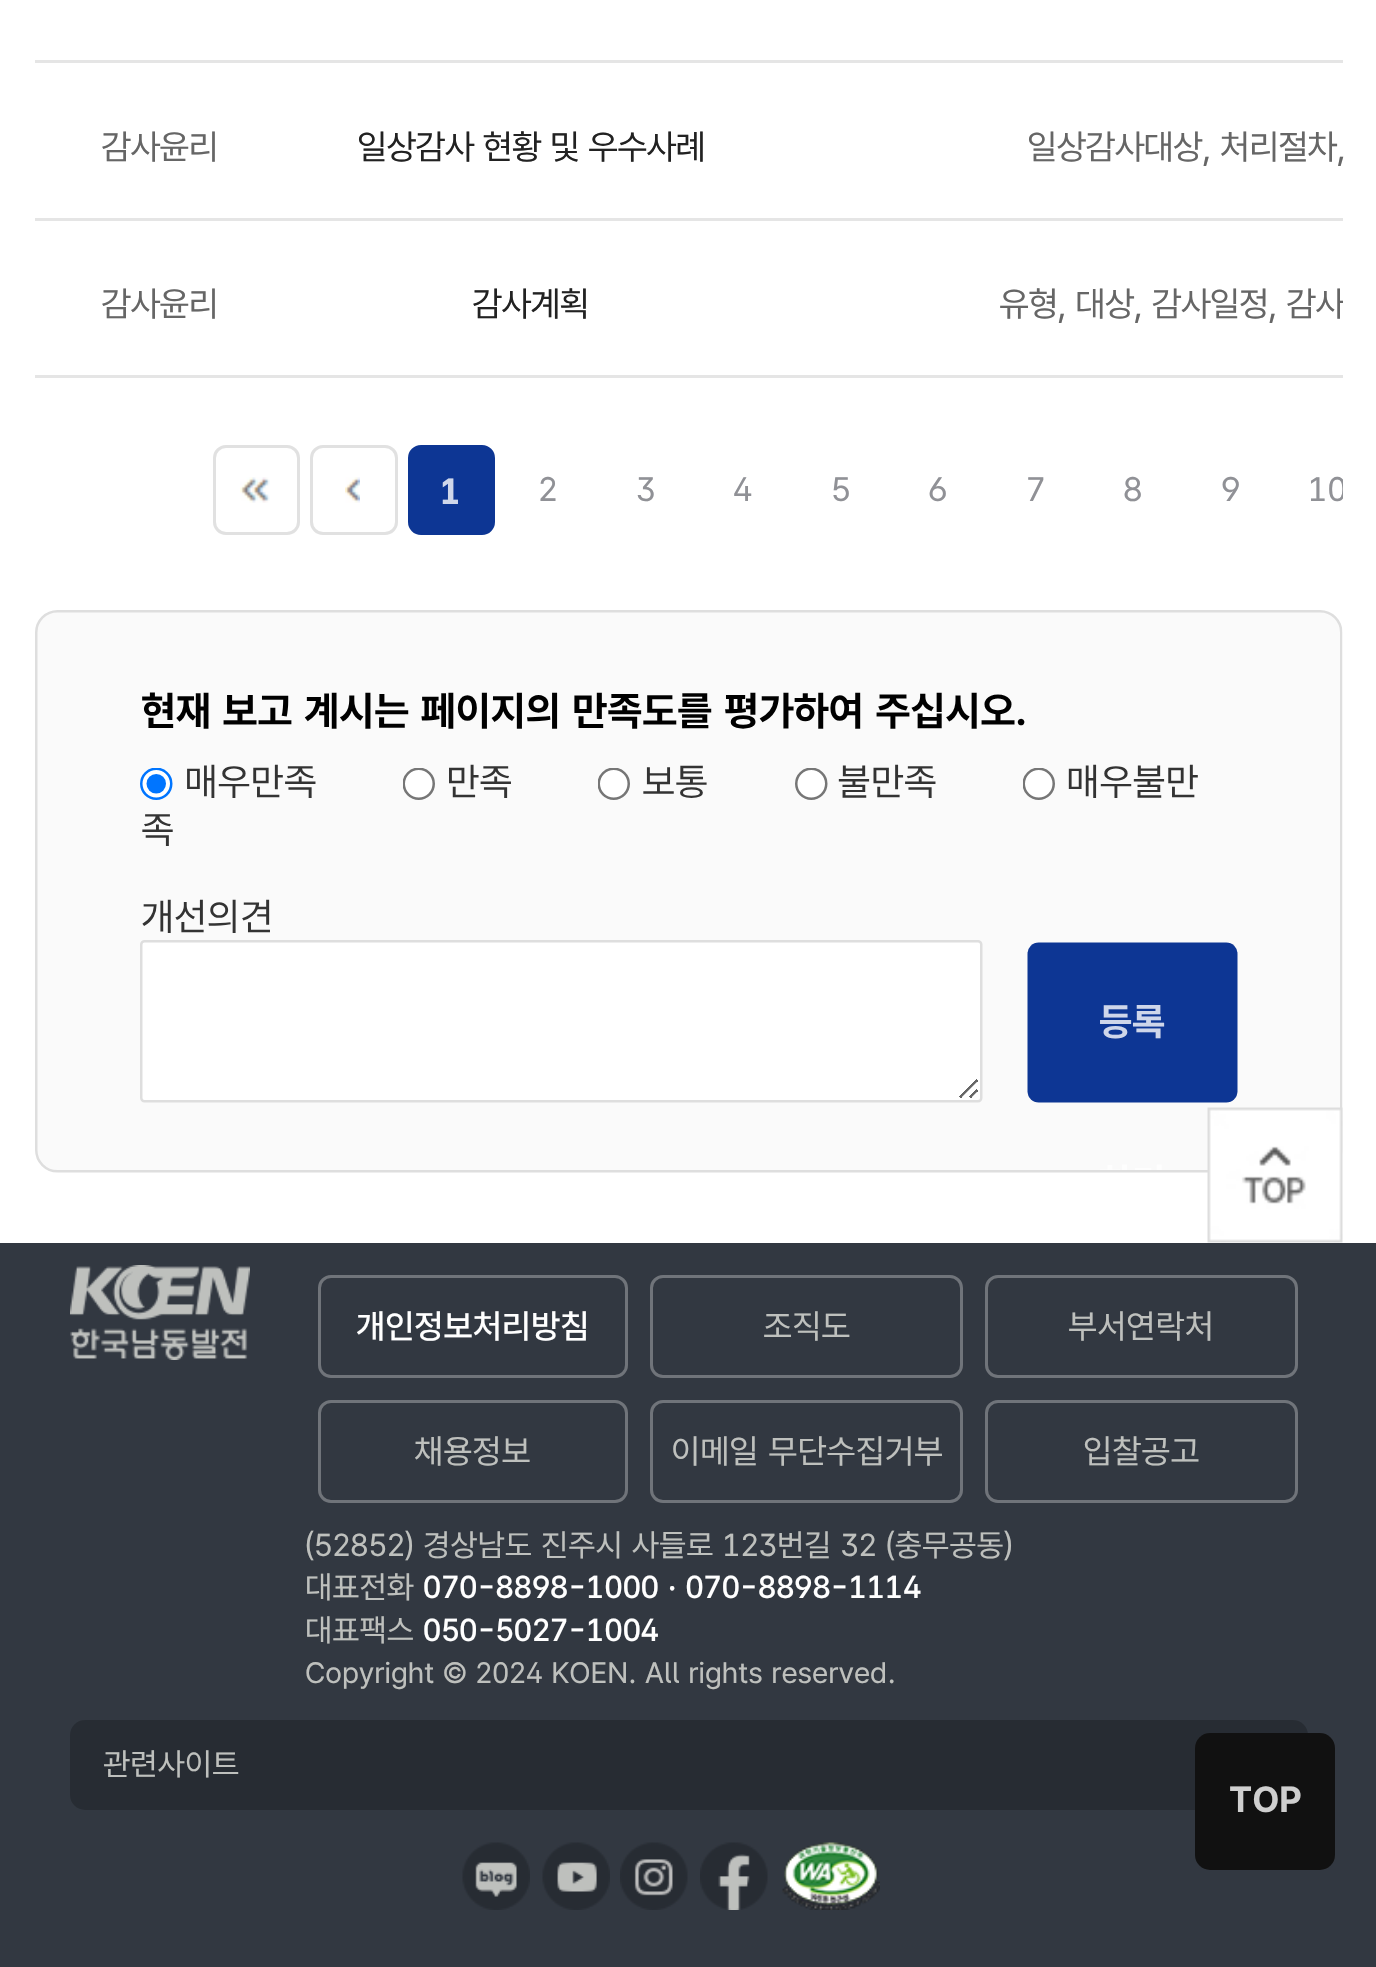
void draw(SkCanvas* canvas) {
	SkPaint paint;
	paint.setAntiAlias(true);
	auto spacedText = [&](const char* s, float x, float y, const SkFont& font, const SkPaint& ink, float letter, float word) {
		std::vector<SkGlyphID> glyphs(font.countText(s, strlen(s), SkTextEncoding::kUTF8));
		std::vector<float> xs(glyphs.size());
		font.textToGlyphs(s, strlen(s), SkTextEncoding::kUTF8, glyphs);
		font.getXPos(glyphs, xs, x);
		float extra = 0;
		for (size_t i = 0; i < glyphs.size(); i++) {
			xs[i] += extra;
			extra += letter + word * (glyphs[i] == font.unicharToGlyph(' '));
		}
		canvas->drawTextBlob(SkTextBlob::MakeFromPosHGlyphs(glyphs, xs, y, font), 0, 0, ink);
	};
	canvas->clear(0xffffffff);
	paint.setColor(0xffe5e5e5);
	canvas->drawRect(SkRect::MakeXYWH(35, 60, 1308, 3), paint);
	SkFont f1(fontMgr->matchFamilyStyle("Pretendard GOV", SkFontStyle::Normal()), 35);
	f1.setSubpixel(true);
	paint.setColor(0xff666666);
	spacedText("감사윤리", 101, 159, f1, paint, -1.1, 0);
	paint.setColor(0xff222222);
	spacedText("일상감사 현황 및 우수사례", 357, 159, f1, paint, -1.1, 0);
	paint.setColor(0xffe5e5e5);
	canvas->drawRect(SkRect::MakeXYWH(35, 218, 1308, 3), paint);
	paint.setColor(0xff666666);
	spacedText("일상감사대상, 처리절차,", 1027, 159, f1, paint, -1.1, 0);
	spacedText("감사윤리", 101, 316, f1, paint, -1.1, 0);
	paint.setColor(0xff222222);
	spacedText("감사계획", 472, 316, f1, paint, -1.1, 0);
	paint.setColor(0xffe5e5e5);
	canvas->drawRect(SkRect::MakeXYWH(35, 375, 1308, 3), paint);
	canvas->save();
	canvas->clipRect(SkRect::MakeXYWH(35, 0, 1308, 535));
	paint.setColor(0xff666666);
	spacedText("유형, 대상, 감사일정, 감사", 999, 316, f1, paint, -1.1, 0);
	canvas->restore();
	canvas->drawImageRect(SkImages::DeferredFromEncodedData(SkData::MakeFromFileName("img1.png")), SkRect::MakeXYWH(240, 477, 30, 26), SkSamplingOptions());
	paint.setStroke(true);
	paint.setStrokeWidth(3);
	paint.setColor(0xffe1e1e1);
	canvas->drawRoundRect(SkRect::MakeXYWH(214.5, 446.5, 84, 87), 11.5, 11.5, paint);
	canvas->drawImageRect(SkImages::DeferredFromEncodedData(SkData::MakeFromFileName("img2.png")), SkRect::MakeXYWH(345, 477, 15, 26), SkSamplingOptions());
	canvas->drawRoundRect(SkRect::MakeXYWH(311.5, 446.5, 85, 87), 11.5, 11.5, paint);
	paint.setStroke(false);
	paint.setColor(0xff0d3694);
	canvas->drawRoundRect(SkRect::MakeXYWH(409.5, 446.5, 84, 87), 11.5, 11.5, paint);
	paint.setStroke(true);
	canvas->drawRoundRect(SkRect::MakeXYWH(409.5, 446.5, 84, 87), 11.5, 11.5, paint);
	SkFont f2(fontMgr->matchFamilyStyle("Pretendard GOV", SkFontStyle::Bold()), 36);
	f2.setSubpixel(true);
	paint.setStroke(false);
	paint.setColor(0xffcfd7ea);
	canvas->drawString("1", 440, 504, f2, paint);
	SkFont f3(fontMgr->matchFamilyStyle("Pretendard GOV", SkFontStyle::Normal()), 33.75);
	f3.setSubpixel(true);
	paint.setColor(0xff909196);
	canvas->drawString("2", 538, 501, f3, paint);
	canvas->drawString("3", 636, 501, f3, paint);
	canvas->drawString("4", 733, 501, f3, paint);
	canvas->drawString("5", 831, 501, f3, paint);
	canvas->drawString("6", 928, 501, f3, paint);
	canvas->drawString("7", 1026, 501, f3, paint);
	canvas->drawString("8", 1123, 501, f3, paint);
	canvas->drawString("9", 1221, 501, f3, paint);
	canvas->save();
	canvas->clipRect(SkRect::MakeXYWH(35, 0, 1308, 535));
	canvas->drawString("10", 1308, 501, f3, paint);
	canvas->restore();
	canvas->drawImageRect(SkImages::DeferredFromEncodedData(SkData::MakeFromFileName("img4.png")), SkRect::MakeXYWH(35, 610, 1308, 563), SkSamplingOptions());
	canvas->drawImageRect(SkImages::DeferredFromEncodedData(SkData::MakeFromFileName("img3.png")), SkRect::MakeXYWH(1207, 1107, 136, 136), SkSamplingOptions());
	paint.setColor(0xff323841);
	canvas->drawRect(SkRect::MakeXYWH(0, 1243, 1376, 724), paint);
	paint.setColor(0xff272c33);
	canvas->drawRoundRect(SkRect::MakeXYWH(70, 1720, 1238, 90), 15, 15, paint);
	paint.setColor(0xff111111);
	canvas->drawRoundRect(SkRect::MakeXYWH(1195, 1733, 140, 137), 15, 15, paint);
	paint.setColor(0xffcfcfcf);
	canvas->drawString("TOP", 1229, 1812, f2, paint);
	canvas->drawImageRect(SkImages::DeferredFromEncodedData(SkData::MakeFromFileName("img5.png")), SkRect::MakeXYWH(70, 1265, 180, 95), SkSamplingOptions());
	paint.setStroke(true);
	paint.setColor(0xff70747a);
	canvas->drawRoundRect(SkRect::MakeXYWH(319.5, 1276.5, 307, 100), 11.5, 11.5, paint);
	SkFont f4(fontMgr->matchFamilyStyle("Pretendard GOV", SkFontStyle(500, SkFontStyle::kNormal_Width, SkFontStyle::kUpright_Slant)), 33.75);
	f4.setSubpixel(true);
	paint.setStroke(false);
	paint.setColor(0xffffffff);
	canvas->drawString("개인정보처리방침", 356, 1338, f4, paint);
	paint.setStroke(true);
	paint.setColor(0xff70747a);
	canvas->drawRoundRect(SkRect::MakeXYWH(651.5, 1276.5, 310, 100), 11.5, 11.5, paint);
	paint.setStroke(false);
	paint.setColor(0xffbec0bd);
	canvas->drawString("조직도", 763, 1338, f3, paint);
	paint.setStroke(true);
	paint.setColor(0xff70747a);
	canvas->drawRoundRect(SkRect::MakeXYWH(986.5, 1276.5, 310, 100), 11.5, 11.5, paint);
	paint.setStroke(false);
	paint.setColor(0xffbec0bd);
	canvas->drawString("부서연락처", 1068, 1338, f3, paint);
	paint.setStroke(true);
	paint.setColor(0xff70747a);
	canvas->drawRoundRect(SkRect::MakeXYWH(319.5, 1401.5, 307, 100), 11.5, 11.5, paint);
	paint.setStroke(false);
	paint.setColor(0xffbec0bd);
	canvas->drawString("채용정보", 414, 1463, f3, paint);
	paint.setStroke(true);
	paint.setColor(0xff70747a);
	canvas->drawRoundRect(SkRect::MakeXYWH(651.5, 1401.5, 310, 100), 11.5, 11.5, paint);
	paint.setStroke(false);
	paint.setColor(0xffbec0bd);
	canvas->drawString("이메일 무단수집거부", 671, 1463, f3, paint);
	paint.setStroke(true);
	paint.setColor(0xff70747a);
	canvas->drawRoundRect(SkRect::MakeXYWH(986.5, 1401.5, 310, 100), 11.5, 11.5, paint);
	paint.setStroke(false);
	paint.setColor(0xffbec0bd);
	canvas->drawString("입찰공고", 1083, 1463, f3, paint);
	SkFont f5(fontMgr->matchFamilyStyle("Pretendard GOV", SkFontStyle::Normal()), 31.5);
	f5.setSubpixel(true);
	canvas->drawString("(52852) 경상남도 진주시 사들로 123번길 32 (충무공동)", 305, 1556, f5, paint);
	canvas->drawString("대표전화", 305, 1598, f5, paint);
	SkFont f6(fontMgr->matchFamilyStyle("Pretendard GOV", SkFontStyle(500, SkFontStyle::kNormal_Width, SkFontStyle::kUpright_Slant)), 31.5);
	f6.setSubpixel(true);
	paint.setColor(0xffffffff);
	canvas->drawString("070-8898-1000 · 070-8898-1114", 423, 1598, f6, paint);
	paint.setColor(0xffbec0bd);
	canvas->drawString("대표팩스", 305, 1641, f5, paint);
	paint.setColor(0xffffffff);
	canvas->drawString("050-5027-1004", 423, 1641, f6, paint);
	SkFont f7(fontMgr->matchFamilyStyle("Pretendard GOV", SkFontStyle::Normal()), 29.25);
	f7.setSubpixel(true);
	paint.setColor(0xffbec0bd);
	canvas->drawString("Copyright © 2024 KOEN. All rights reserved.", 305, 1683, f7, paint);
	canvas->drawString("관련사이트", 103, 1775, f5, paint);
	canvas->drawImageRect(SkImages::DeferredFromEncodedData(SkData::MakeFromFileName("img6.png")), SkRect::MakeXYWH(462, 1842, 68, 68), SkSamplingOptions());
	canvas->drawImageRect(SkImages::DeferredFromEncodedData(SkData::MakeFromFileName("img7.png")), SkRect::MakeXYWH(542, 1842, 68, 68), SkSamplingOptions());
	canvas->drawImageRect(SkImages::DeferredFromEncodedData(SkData::MakeFromFileName("img8.png")), SkRect::MakeXYWH(620, 1842, 68, 68), SkSamplingOptions());
	canvas->drawImageRect(SkImages::DeferredFromEncodedData(SkData::MakeFromFileName("img9.png")), SkRect::MakeXYWH(700, 1842, 68, 68), SkSamplingOptions());
	canvas->drawImageRect(SkImages::DeferredFromEncodedData(SkData::MakeFromFileName("img10.png")), SkRect::MakeXYWH(782, 1842, 98, 68), SkSamplingOptions());
}
